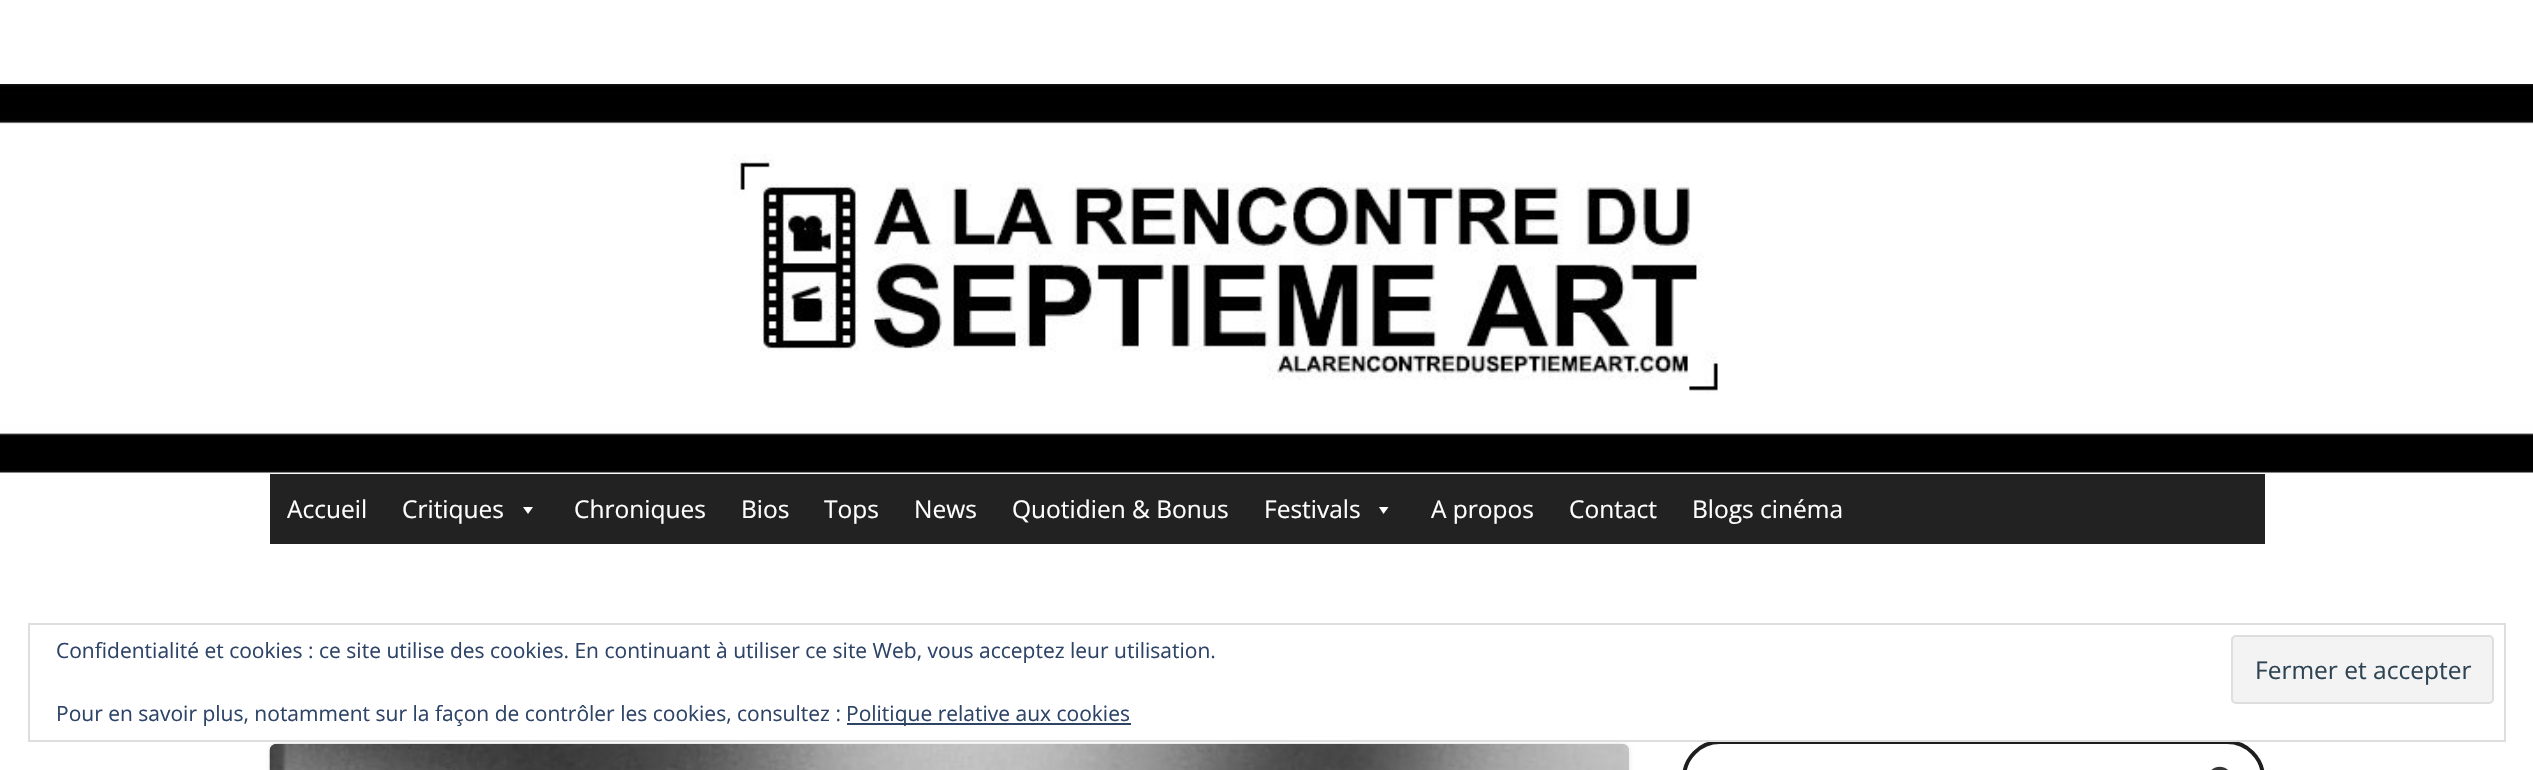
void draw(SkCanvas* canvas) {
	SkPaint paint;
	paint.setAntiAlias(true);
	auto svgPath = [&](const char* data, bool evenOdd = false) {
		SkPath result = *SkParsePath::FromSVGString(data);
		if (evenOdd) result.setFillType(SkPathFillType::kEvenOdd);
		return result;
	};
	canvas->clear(0xffffffff);
	canvas->drawImageRect(SkImages::DeferredFromEncodedData(SkData::MakeFromFileName("img1.png")), SkRect::MakeXYWH(0, 84, 2533, 389), SkSamplingOptions());
	paint.setColor(0xff222222);
	canvas->drawRect(SkRect::MakeXYWH(270, 474, 1995, 70), paint);
	SkFont f1(fontMgr->matchFamilyStyle("Open Sans", SkFontStyle::Normal()), 24.5);
	f1.setSubpixel(true);
	paint.setColor(0xffffffff);
	canvas->drawString("Accueil", 287, 518, f1, paint);
	canvas->drawString("Critiques", 402, 518, f1, paint);
	canvas->drawPath(svgPath("M533 507L528 514L523 507Z"), paint);
	canvas->drawString("Chroniques", 574, 518, f1, paint);
	canvas->drawString("Bios", 741, 518, f1, paint);
	canvas->drawString("Tops", 824, 518, f1, paint);
	canvas->drawString("News", 914, 518, f1, paint);
	canvas->drawString("Quotidien & Bonus", 1012, 518, f1, paint);
	canvas->drawString("Festivals", 1264, 518, f1, paint);
	canvas->drawPath(svgPath("M1388.5 507L1383.5 514L1379 507Z"), paint);
	canvas->drawString("A propos", 1431, 518, f1, paint);
	canvas->drawString("Contact", 1569, 518, f1, paint);
	canvas->drawString("Blogs cinéma", 1692, 518, f1, paint);
	paint.setColor(0xffe4e4e7);
	paint.setMaskFilter(SkMaskFilter::MakeBlur(kNormal_SkBlurStyle, 2));
	canvas->drawRoundRect(SkRect::MakeXYWH(270, 744, 1359, 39), 7, 7, paint);
	paint.setMaskFilter(nullptr);
	canvas->drawImageRect(SkImages::DeferredFromEncodedData(SkData::MakeFromFileName("img2.png")), SkRect::MakeXYWH(269, 743, 1360, 27), SkSamplingOptions());
	paint.setStroke(true);
	paint.setStrokeWidth(4);
	paint.setColor(0xff1e1e1e);
	canvas->drawRoundRect(SkRect::MakeXYWH(1684, 742, 579, 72), 40, 40, paint);
	canvas->drawImageRect(SkImages::DeferredFromEncodedData(SkData::MakeFromFileName("img3.png")), SkRect::MakeXYWH(2211, 766, 17, 4), SkSamplingOptions());
	paint.setStrokeWidth(2);
	paint.setColor(0xffdedede);
	canvas->drawRect(SkRect::MakeXYWH(29, 624, 2476, 117), paint);
	SkFont f2(fontMgr->matchFamilyStyle("Open Sans", SkFontStyle::Normal()), 21);
	f2.setSubpixel(true);
	paint.setStroke(false);
	paint.setColor(0xff2e4467);
	canvas->drawString("Confidentialité et cookies : ce site utilise des cookies. En continuant à utiliser ce site Web, vous acceptez leur utilisation.", 56, 658, f2, paint);
	paint.setColor(0xfff3f3f3);
	canvas->drawRoundRect(SkRect::MakeXYWH(2232, 636, 261, 67), 4, 4, paint);
	paint.setStroke(true);
	paint.setColor(0xffdedede);
	canvas->drawRoundRect(SkRect::MakeXYWH(2232, 636, 261, 67), 4, 4, paint);
	paint.setStroke(false);
	paint.setColor(0xff2e4453);
	canvas->drawString("Fermer et accepter", 2255, 679, f1, paint);
	paint.setColor(0xff2e4467);
	canvas->drawString("Pour en savoir plus, notamment sur la façon de contrôler les cookies, consultez :", 56, 721, f2, paint);
	canvas->drawRect(SkRect::MakeXYWH(847, 723, 284, 2), paint);
	canvas->drawString("Politique relative aux cookies", 846, 721, f2, paint);
}
